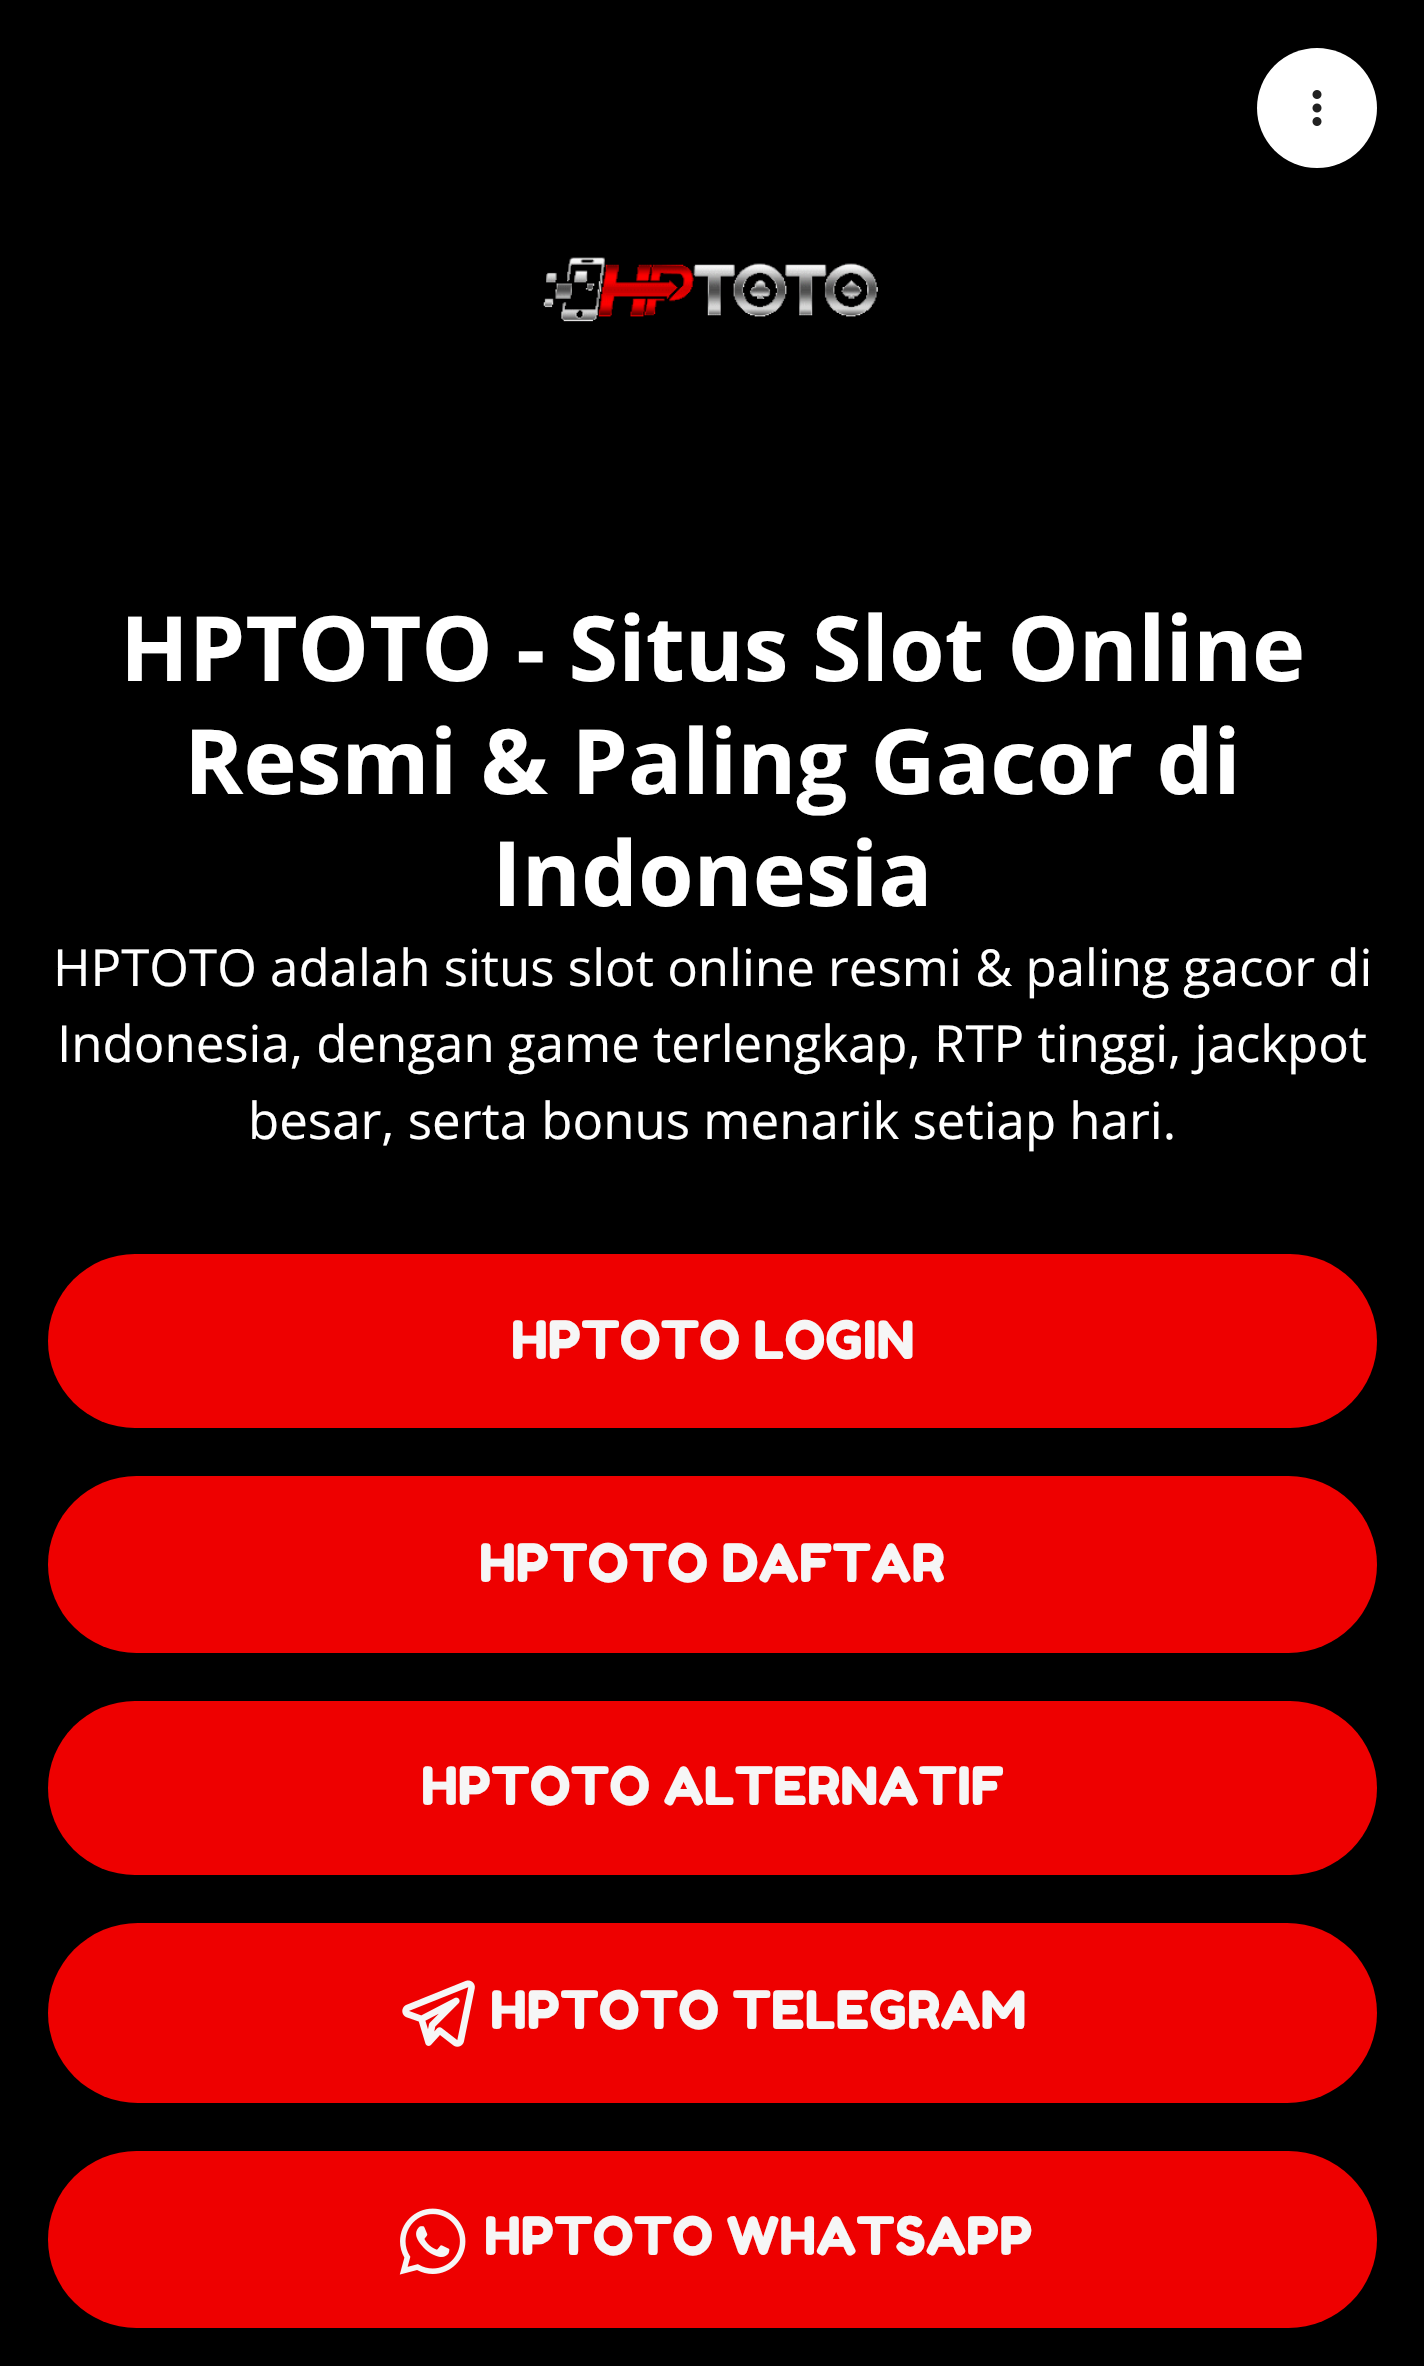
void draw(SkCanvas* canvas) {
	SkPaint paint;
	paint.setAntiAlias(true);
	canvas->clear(0xff000000);
	paint.setColor(0xffffffff);
	canvas->drawCircle(1317, 108, 60, paint);
	canvas->drawImageRect(SkImages::DeferredFromEncodedData(SkData::MakeFromFileName("img1.png")), SkRect::MakeXYWH(1312, 90, 10, 36), SkSamplingOptions());
	canvas->drawImageRect(SkImages::DeferredFromEncodedData(SkData::MakeFromFileName("img2.png")), SkRect::MakeXYWH(543, 257, 335, 65), SkSamplingOptions());
	SkFont f1(fontMgr->matchFamilyStyle("Open Sans", SkFontStyle::Bold()), 90);
	f1.setSubpixel(true);
	canvas->drawString("HPTOTO - Situs Slot Online", 120, 681, f1, paint);
	canvas->drawString("Resmi & Paling Gacor di", 184, 794, f1, paint);
	canvas->drawString("Indonesia", 492, 906, f1, paint);
	SkFont f2(fontMgr->matchFamilyStyle("Open Sans", SkFontStyle::Normal()), 51);
	f2.setSubpixel(true);
	canvas->drawString("HPTOTO adalah situs slot online resmi & paling gacor di", 53, 986, f2, paint);
	canvas->drawString("Indonesia, dengan game terlengkap, RTP tinggi, jackpot", 57, 1062, f2, paint);
	canvas->drawString("besar, serta bonus menarik setiap hari.", 248, 1139, f2, paint);
	paint.setColor(0xffee0000);
	canvas->drawRoundRect(SkRect::MakeXYWH(48, 1254, 1329, 174), 87, 87, paint);
	SkFont f3(fontMgr->matchFamilyStyle("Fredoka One", SkFontStyle::Normal()), 52.75);
	f3.setSubpixel(true);
	paint.setColor(0xfff6f6f6);
	canvas->drawString("HPTOTO LOGIN", 511, 1359, f3, paint);
	paint.setColor(0xffee0000);
	canvas->drawRoundRect(SkRect::MakeXYWH(48, 1476, 1329, 177), 88.5, 88.5, paint);
	paint.setColor(0xfff6f6f6);
	canvas->drawString("HPTOTO DAFTAR", 479, 1582, f3, paint);
	paint.setColor(0xffee0000);
	canvas->drawRoundRect(SkRect::MakeXYWH(48, 1701, 1329, 174), 87, 87, paint);
	paint.setColor(0xfff6f6f6);
	canvas->drawString("HPTOTO ALTERNATIF", 421, 1805, f3, paint);
	paint.setColor(0xffee0000);
	canvas->drawRoundRect(SkRect::MakeXYWH(48, 1923, 1329, 180), 90, 90, paint);
	canvas->drawImageRect(SkImages::DeferredFromEncodedData(SkData::MakeFromFileName("img3.png")), SkRect::MakeXYWH(402, 1980, 73, 67), SkSamplingOptions());
	paint.setColor(0xfff6f6f6);
	canvas->drawString("HPTOTO TELEGRAM", 490, 2029, f3, paint);
	paint.setColor(0xffee0000);
	canvas->drawRoundRect(SkRect::MakeXYWH(48, 2151, 1329, 177), 88.5, 88.5, paint);
	canvas->drawImageRect(SkImages::DeferredFromEncodedData(SkData::MakeFromFileName("img4.png")), SkRect::MakeXYWH(399, 2208, 67, 67), SkSamplingOptions());
	paint.setColor(0xfff6f6f6);
	canvas->drawString("HPTOTO WHATSAPP", 484, 2255, f3, paint);
}
